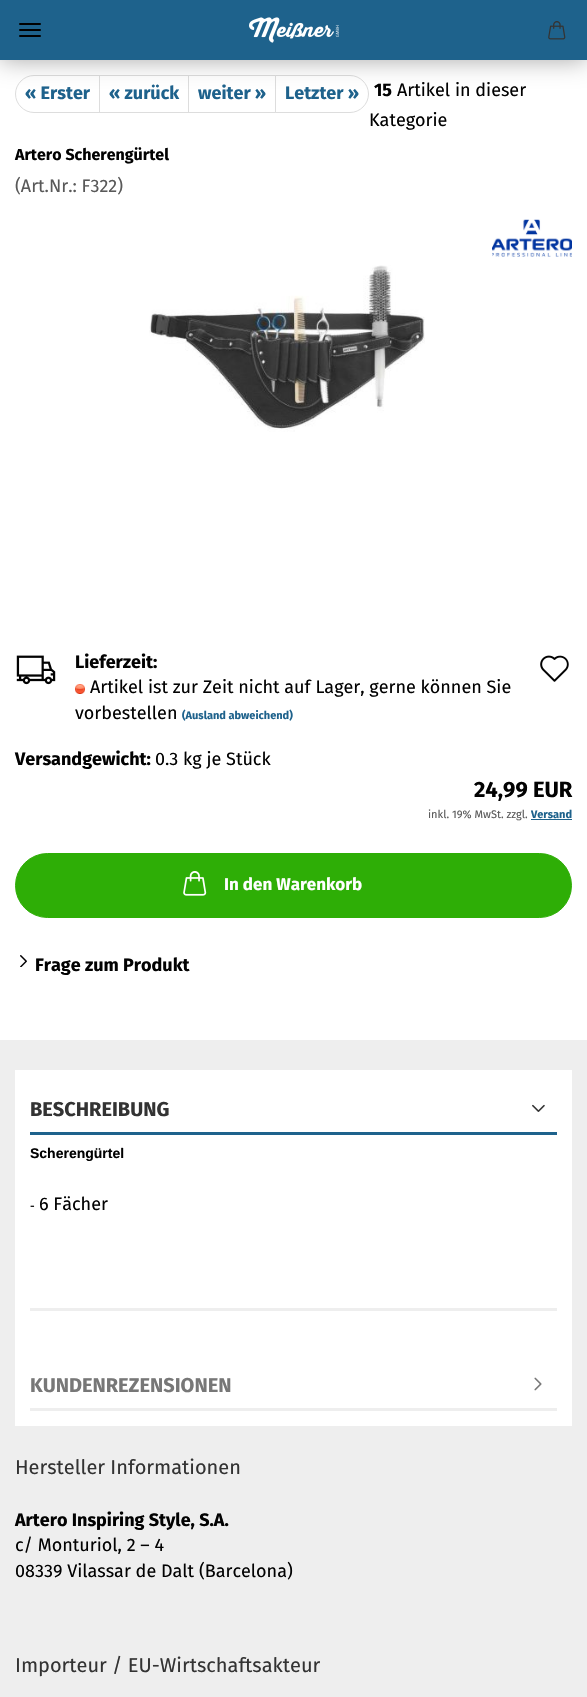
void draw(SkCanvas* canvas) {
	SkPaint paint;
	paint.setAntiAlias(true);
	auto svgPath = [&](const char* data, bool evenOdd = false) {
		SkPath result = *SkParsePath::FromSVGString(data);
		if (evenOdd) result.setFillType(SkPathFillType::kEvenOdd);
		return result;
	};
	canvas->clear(0xffffffff);
	paint.setStroke(true);
	paint.setStrokeWidth(1);
	paint.setColor(0xffdddddd);
	canvas->drawPath(svgPath("M34 75.5H99.5V112.5H34C24 112.5 15.5 104 15.5 94C15.5 84 24 75.5 34 75.5Z"), paint);
	canvas->drawRect(SkRect::MakeXYWH(99.5, 75.5, 89, 37), paint);
	canvas->drawRect(SkRect::MakeXYWH(188.5, 75.5, 87, 37), paint);
	paint.setStroke(false);
	paint.setColor(0xffffffff);
	canvas->drawPath(svgPath("M275.5 75.5H350C360 75.5 368.5 84 368.5 94C368.5 104 360 112.5 350 112.5H275.5Z"), paint);
	paint.setStroke(true);
	paint.setColor(0xffdddddd);
	canvas->drawPath(svgPath("M275.5 75.5H350C360 75.5 368.5 84 368.5 94C368.5 104 360 112.5 350 112.5H275.5Z"), paint);
	paint.setStroke(false);
	paint.setColor(0x59000000);
	paint.setMaskFilter(SkMaskFilter::MakeBlur(kNormal_SkBlurStyle, 12.5));
	canvas->drawRect(SkRect::MakeXYWH(0, 0, 587, 60), paint);
	paint.setMaskFilter(nullptr);
	paint.setColor(0xff1e628c);
	canvas->drawRect(SkRect::MakeXYWH(0, 0, 587, 60), paint);
	canvas->drawImageRect(SkImages::DeferredFromEncodedData(SkData::MakeFromFileName("img1.png")), SkRect::MakeXYWH(249, 17, 90, 26), SkSamplingOptions());
	canvas->drawImageRect(SkImages::DeferredFromEncodedData(SkData::MakeFromFileName("img2.png")), SkRect::MakeXYWH(548, 21, 18, 19), SkSamplingOptions());
	paint.setColor(0xff000000);
	canvas->drawRoundRect(SkRect::MakeXYWH(19, 29, 22, 2), 1, 1, paint);
	canvas->drawRoundRect(SkRect::MakeXYWH(19, 23, 22, 2), 1, 1, paint);
	canvas->drawRoundRect(SkRect::MakeXYWH(19, 35, 22, 2), 1, 1, paint);
	SkFont f1(fontMgr->matchFamilyStyle("Fira Sans", SkFontStyle::Bold()), 18);
	f1.setSubpixel(true);
	paint.setColor(0xff1e628c);
	canvas->drawString("« Erster", 25, 99, f1, paint);
	canvas->drawString("« zurück", 109, 99, f1, paint);
	canvas->drawString("weiter »", 198, 99, f1, paint);
	canvas->drawString("Letzter »", 285, 99, f1, paint);
	paint.setColor(0xff020202);
	canvas->drawString("15", 374, 96, f1, paint);
	SkFont f2(fontMgr->matchFamilyStyle("Fira Sans", SkFontStyle::Normal()), 18);
	f2.setSubpixel(true);
	canvas->drawString("Artikel in dieser", 397, 96, f2, paint);
	canvas->drawString("Kategorie", 369, 126, f2, paint);
	SkFont f3(fontMgr->matchFamilyStyle("Fira Sans", SkFontStyle::Bold()), 16);
	f3.setSubpixel(true);
	canvas->drawString("Artero Scherengürtel", 15, 160, f3, paint);
	paint.setColor(0xff595959);
	canvas->drawString("(Art.Nr.: F322)", 15, 192, f2, paint);
	canvas->drawImageRect(SkImages::DeferredFromEncodedData(SkData::MakeFromFileName("img3.png")), SkRect::MakeXYWH(492, 219, 80, 38), SkSamplingOptions());
	canvas->drawImageRect(SkImages::DeferredFromEncodedData(SkData::MakeFromFileName("img4.png")), SkRect::MakeXYWH(149, 265, 276, 167), SkSamplingOptions());
	canvas->drawImageRect(SkImages::DeferredFromEncodedData(SkData::MakeFromFileName("img5.png")), SkRect::MakeXYWH(16, 655, 40, 30), SkSamplingOptions());
	paint.setColor(0xff020202);
	canvas->drawString("Lieferzeit:", 75, 668, f1, paint);
	canvas->drawImageRect(SkImages::DeferredFromEncodedData(SkData::MakeFromFileName("img6.png")), SkRect::MakeXYWH(75, 684, 10, 10), SkSamplingOptions());
	canvas->drawString("Artikel ist zur Zeit nicht auf Lager, gerne können Sie", 90, 693, f2, paint);
	canvas->drawString("vorbestellen", 75, 719, f2, paint);
	SkFont f4(fontMgr->matchFamilyStyle("Fira Sans", SkFontStyle::Bold()), 11);
	f4.setSubpixel(true);
	paint.setColor(0xff1e628c);
	canvas->drawString("(Ausland abweichend)", 182, 719, f4, paint);
	paint.setColor(0xff020202);
	canvas->drawString("Versandgewicht:", 15, 765, f1, paint);
	canvas->drawString("0.3 kg je Stück", 155, 765, f2, paint);
	canvas->drawImageRect(SkImages::DeferredFromEncodedData(SkData::MakeFromFileName("img7.png")), SkRect::MakeXYWH(540, 655, 29, 27), SkSamplingOptions());
	SkFont f5(fontMgr->matchFamilyStyle("Fira Sans", SkFontStyle::Bold()), 22);
	f5.setSubpixel(true);
	canvas->drawString("24,99 EUR", 474, 797, f5, paint);
	SkFont f6(fontMgr->matchFamilyStyle("Fira Sans", SkFontStyle::Normal()), 11);
	f6.setSubpixel(true);
	paint.setColor(0xff595959);
	canvas->drawString("inkl. 19% MwSt. zzgl.", 428, 818, f6, paint);
	paint.setColor(0xff1e628c);
	canvas->drawString("Versand", 531, 818, f4, paint);
	canvas->drawRect(SkRect::MakeXYWH(531, 819, 41, 1), paint);
	paint.setColor(0xff2eae06);
	canvas->drawRoundRect(SkRect::MakeXYWH(15.5, 853.5, 556, 64), 32, 32, paint);
	paint.setStroke(true);
	canvas->drawRoundRect(SkRect::MakeXYWH(15.5, 853.5, 556, 64), 32, 32, paint);
	canvas->drawImageRect(SkImages::DeferredFromEncodedData(SkData::MakeFromFileName("img8.png")), SkRect::MakeXYWH(183, 871, 24, 25), SkSamplingOptions());
	SkFont f7(fontMgr->matchFamilyStyle("Fira Sans", SkFontStyle::Bold()), 17);
	f7.setSubpixel(true);
	paint.setStroke(false);
	paint.setColor(0xffffffff);
	canvas->drawString("In den Warenkorb", 224, 890, f7, paint);
	canvas->drawImageRect(SkImages::DeferredFromEncodedData(SkData::MakeFromFileName("img9.png")), SkRect::MakeXYWH(20, 955, 7, 12), SkSamplingOptions());
	paint.setColor(0xff020202);
	canvas->drawString("Frage zum Produkt", 35, 971, f1, paint);
	paint.setColor(0xffeeeeee);
	canvas->drawRect(SkRect::MakeXYWH(0, 1040, 587, 657), paint);
	paint.setColor(0xffffffff);
	canvas->drawRect(SkRect::MakeXYWH(15, 1070, 557, 356), paint);
	paint.setColor(0xff1e628c);
	canvas->drawRect(SkRect::MakeXYWH(30, 1132, 527, 3), paint);
	SkFont f8(fontMgr->matchFamilyStyle("Fira Sans", SkFontStyle::Bold()), 20);
	f8.setSubpixel(true);
	paint.setColor(0xff333333);
	canvas->drawString("BESCHREIBUNG", 30, 1116, f8, paint);
	canvas->drawImageRect(SkImages::DeferredFromEncodedData(SkData::MakeFromFileName("img10.png")), SkRect::MakeXYWH(532, 1104, 13, 8), SkSamplingOptions());
	paint.setColor(0xffeeeeee);
	canvas->drawRect(SkRect::MakeXYWH(30, 1308, 527, 3), paint);
	SkFont f9(fontMgr->matchFamilyStyle("Liberation Sans", SkFontStyle::Bold()), 14);
	f9.setSubpixel(true);
	paint.setColor(0xff020202);
	canvas->drawString("Scherengürtel", 30, 1158, f9, paint);
	SkFont f10(fontMgr->matchFamilyStyle("Liberation Sans", SkFontStyle::Normal()), 14);
	f10.setSubpixel(true);
	canvas->drawString("-", 30, 1210, f10, paint);
	canvas->drawString("6 Fächer", 39, 1210, f2, paint);
	paint.setColor(0xffeeeeee);
	canvas->drawRect(SkRect::MakeXYWH(30, 1408, 527, 3), paint);
	paint.setColor(0xff777777);
	canvas->drawString("KUNDENREZENSIONEN", 30, 1392, f8, paint);
	canvas->drawImageRect(SkImages::DeferredFromEncodedData(SkData::MakeFromFileName("img11.png")), SkRect::MakeXYWH(534, 1377, 8, 14), SkSamplingOptions());
	SkFont f11(fontMgr->matchFamilyStyle("Fira Sans", SkFontStyle::Normal()), 20);
	f11.setSubpixel(true);
	paint.setColor(0xff333333);
	canvas->drawString("Hersteller Informationen", 15, 1474, f11, paint);
	paint.setColor(0xff020202);
	canvas->drawString("Artero Inspiring Style, S.A.", 15, 1526, f1, paint);
	canvas->drawString("c/ Monturiol, 2 – 4", 15, 1551, f2, paint);
	canvas->drawString("08339 Vilassar de Dalt (Barcelona)", 15, 1577, f2, paint);
	paint.setColor(0xff333333);
	canvas->drawString("Importeur / EU-Wirtschaftsakteur", 15, 1672, f11, paint);
}
